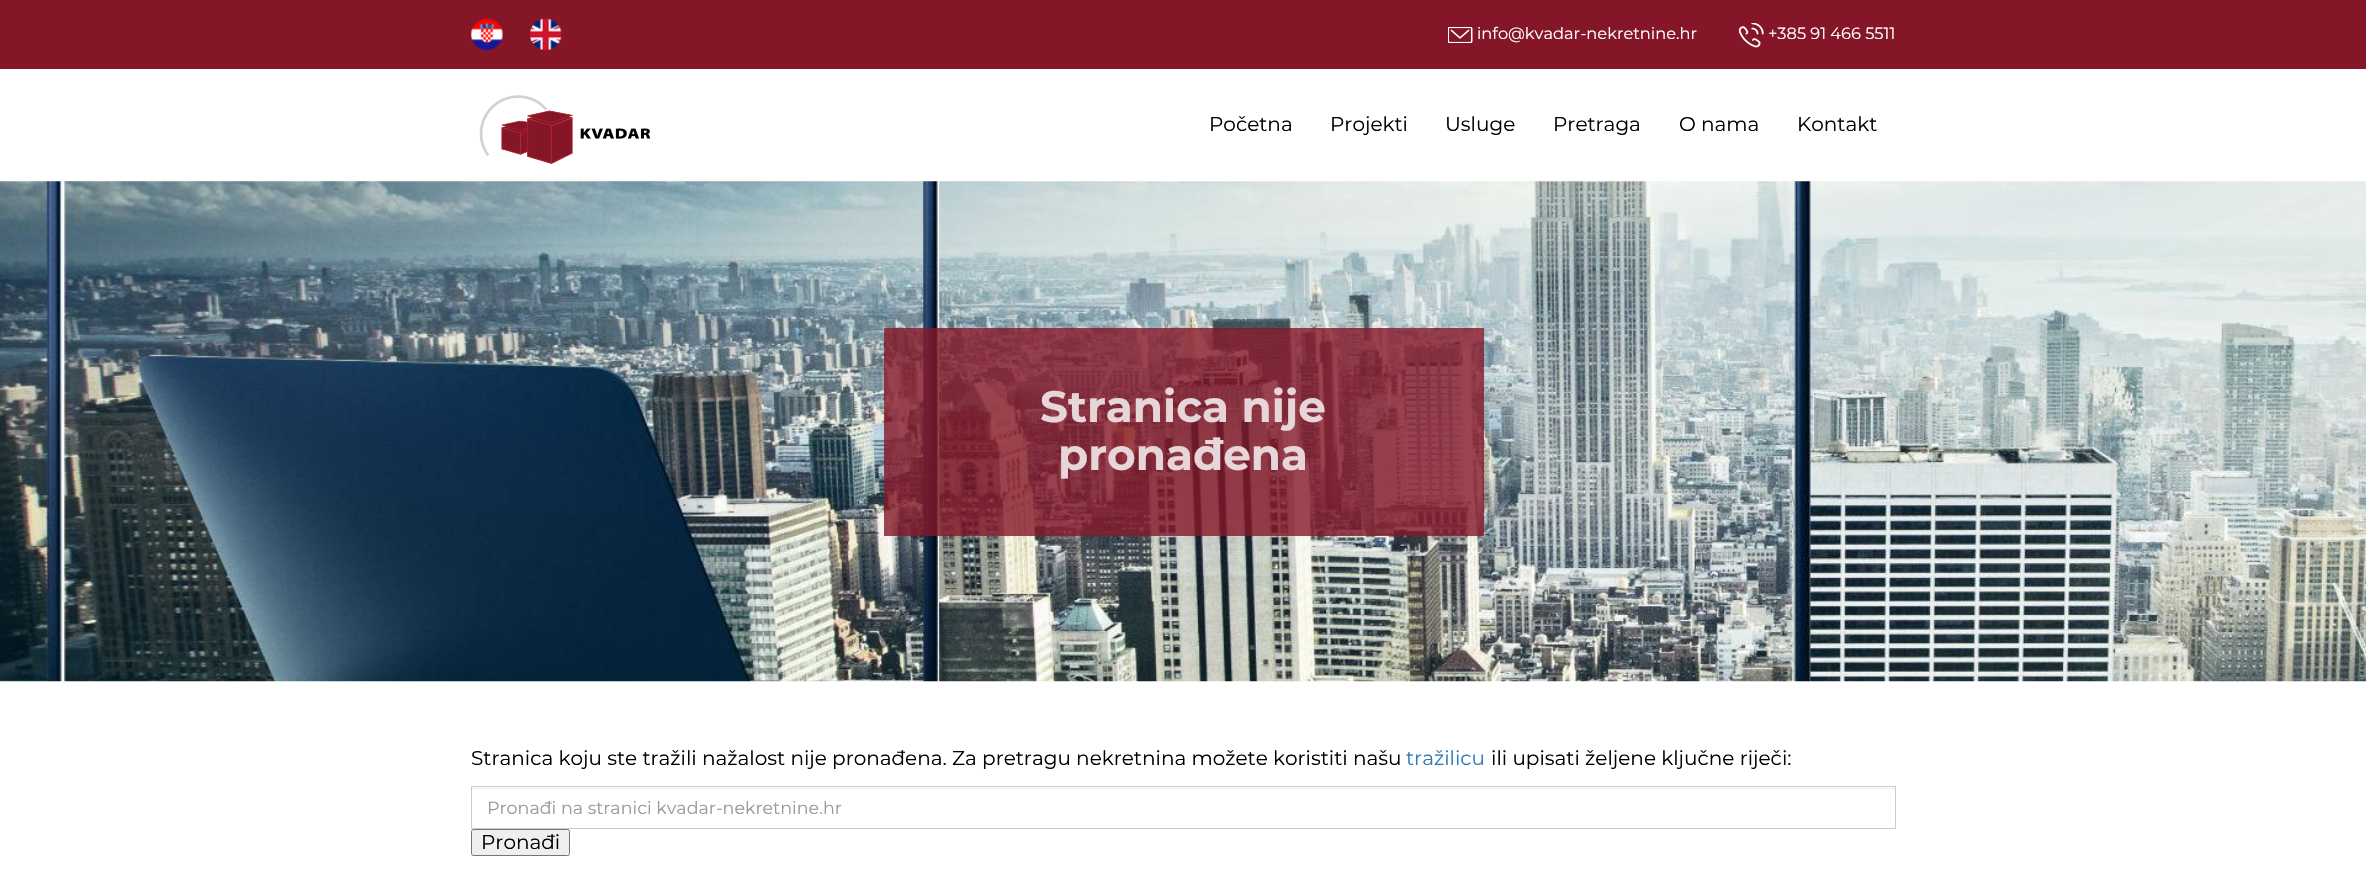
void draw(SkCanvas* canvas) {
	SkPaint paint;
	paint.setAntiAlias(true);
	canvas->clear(0xffffffff);
	paint.setColor(0xff851628);
	canvas->drawRect(SkRect::MakeXYWH(0, 0, 2366, 69), paint);
	canvas->drawImageRect(SkImages::DeferredFromEncodedData(SkData::MakeFromFileName("img1.png")), SkRect::MakeXYWH(471, 18, 32, 32), SkSamplingOptions());
	canvas->drawImageRect(SkImages::DeferredFromEncodedData(SkData::MakeFromFileName("img2.png")), SkRect::MakeXYWH(530, 18, 32, 32), SkSamplingOptions());
	canvas->drawImageRect(SkImages::DeferredFromEncodedData(SkData::MakeFromFileName("img3.png")), SkRect::MakeXYWH(1448, 27, 25, 16), SkSamplingOptions());
	SkFont f1(fontMgr->matchFamilyStyle("Montserrat", SkFontStyle::Normal()), 16.25);
	f1.setSubpixel(true);
	paint.setColor(0xffffffff);
	canvas->drawString("info@kvadar-nekretnine.hr", 1477, 39, f1, paint);
	canvas->drawImageRect(SkImages::DeferredFromEncodedData(SkData::MakeFromFileName("img4.png")), SkRect::MakeXYWH(1739, 23, 25, 25), SkSamplingOptions());
	canvas->drawString("+385 91 466 5511", 1768, 39, f1, paint);
	canvas->drawImageRect(SkImages::DeferredFromEncodedData(SkData::MakeFromFileName("img5.png")), SkRect::MakeXYWH(479, 95, 172, 69), SkSamplingOptions());
	SkFont f2(fontMgr->matchFamilyStyle("Montserrat", SkFontStyle::Normal()), 20);
	f2.setSubpixel(true);
	paint.setColor(0xff000000);
	canvas->drawString("Početna", 1209, 131, f2, paint);
	canvas->drawString("Projekti", 1330, 131, f2, paint);
	canvas->drawString("Usluge", 1445, 131, f2, paint);
	canvas->drawString("Pretraga", 1553, 131, f2, paint);
	canvas->drawString("O nama", 1679, 131, f2, paint);
	canvas->drawString("Kontakt", 1797, 131, f2, paint);
	canvas->drawImageRect(SkImages::DeferredFromEncodedData(SkData::MakeFromFileName("img6.png")), SkRect::MakeXYWH(0, 181, 2366, 501), SkSamplingOptions());
	paint.setColor(0xcc851628);
	canvas->drawRect(SkRect::MakeXYWH(884, 328, 600, 208), paint);
	SkFont f3(fontMgr->matchFamilyStyle("Montserrat", SkFontStyle::Bold()), 43.75);
	f3.setSubpixel(true);
	paint.setColor(0xffe7d6d9);
	canvas->drawString("Stranica nije", 1040, 422, f3, paint);
	canvas->drawString("pronađena", 1058, 470, f3, paint);
	paint.setColor(0xff000000);
	canvas->drawString("Stranica koju ste tražili nažalost nije pronađena. Za pretragu nekretnina možete koristiti našu", 471, 765, f2, paint);
	paint.setColor(0xff337ab7);
	canvas->drawString("tražilicu", 1406, 765, f2, paint);
	paint.setColor(0xff000000);
	canvas->drawString("ili upisati željene ključne riječi:", 1491, 765, f2, paint);
	paint.setColor(0xffececec);
	canvas->drawRect(SkRect::MakeXYWH(473, 788, 1422, 1), paint);
	paint.setStroke(true);
	paint.setStrokeWidth(1);
	paint.setColor(0xffcccccc);
	canvas->drawRect(SkRect::MakeXYWH(471.5, 786.5, 1424, 42), paint);
	SkFont f4(fontMgr->matchFamilyStyle("Montserrat", SkFontStyle::Normal()), 17.5);
	f4.setSubpixel(true);
	paint.setStroke(false);
	paint.setColor(0xff999999);
	canvas->drawString("Pronađi na stranici kvadar-nekretnine.hr", 487, 814, f4, paint);
	paint.setColor(0xffefefef);
	canvas->drawRoundRect(SkRect::MakeXYWH(471.5, 829.5, 98, 26), 2, 2, paint);
	paint.setStroke(true);
	paint.setColor(0xff767676);
	canvas->drawRoundRect(SkRect::MakeXYWH(471.5, 829.5, 98, 26), 2, 2, paint);
	paint.setStroke(false);
	paint.setColor(0xff000000);
	canvas->drawString("Pronađi", 481, 849, f2, paint);
}
